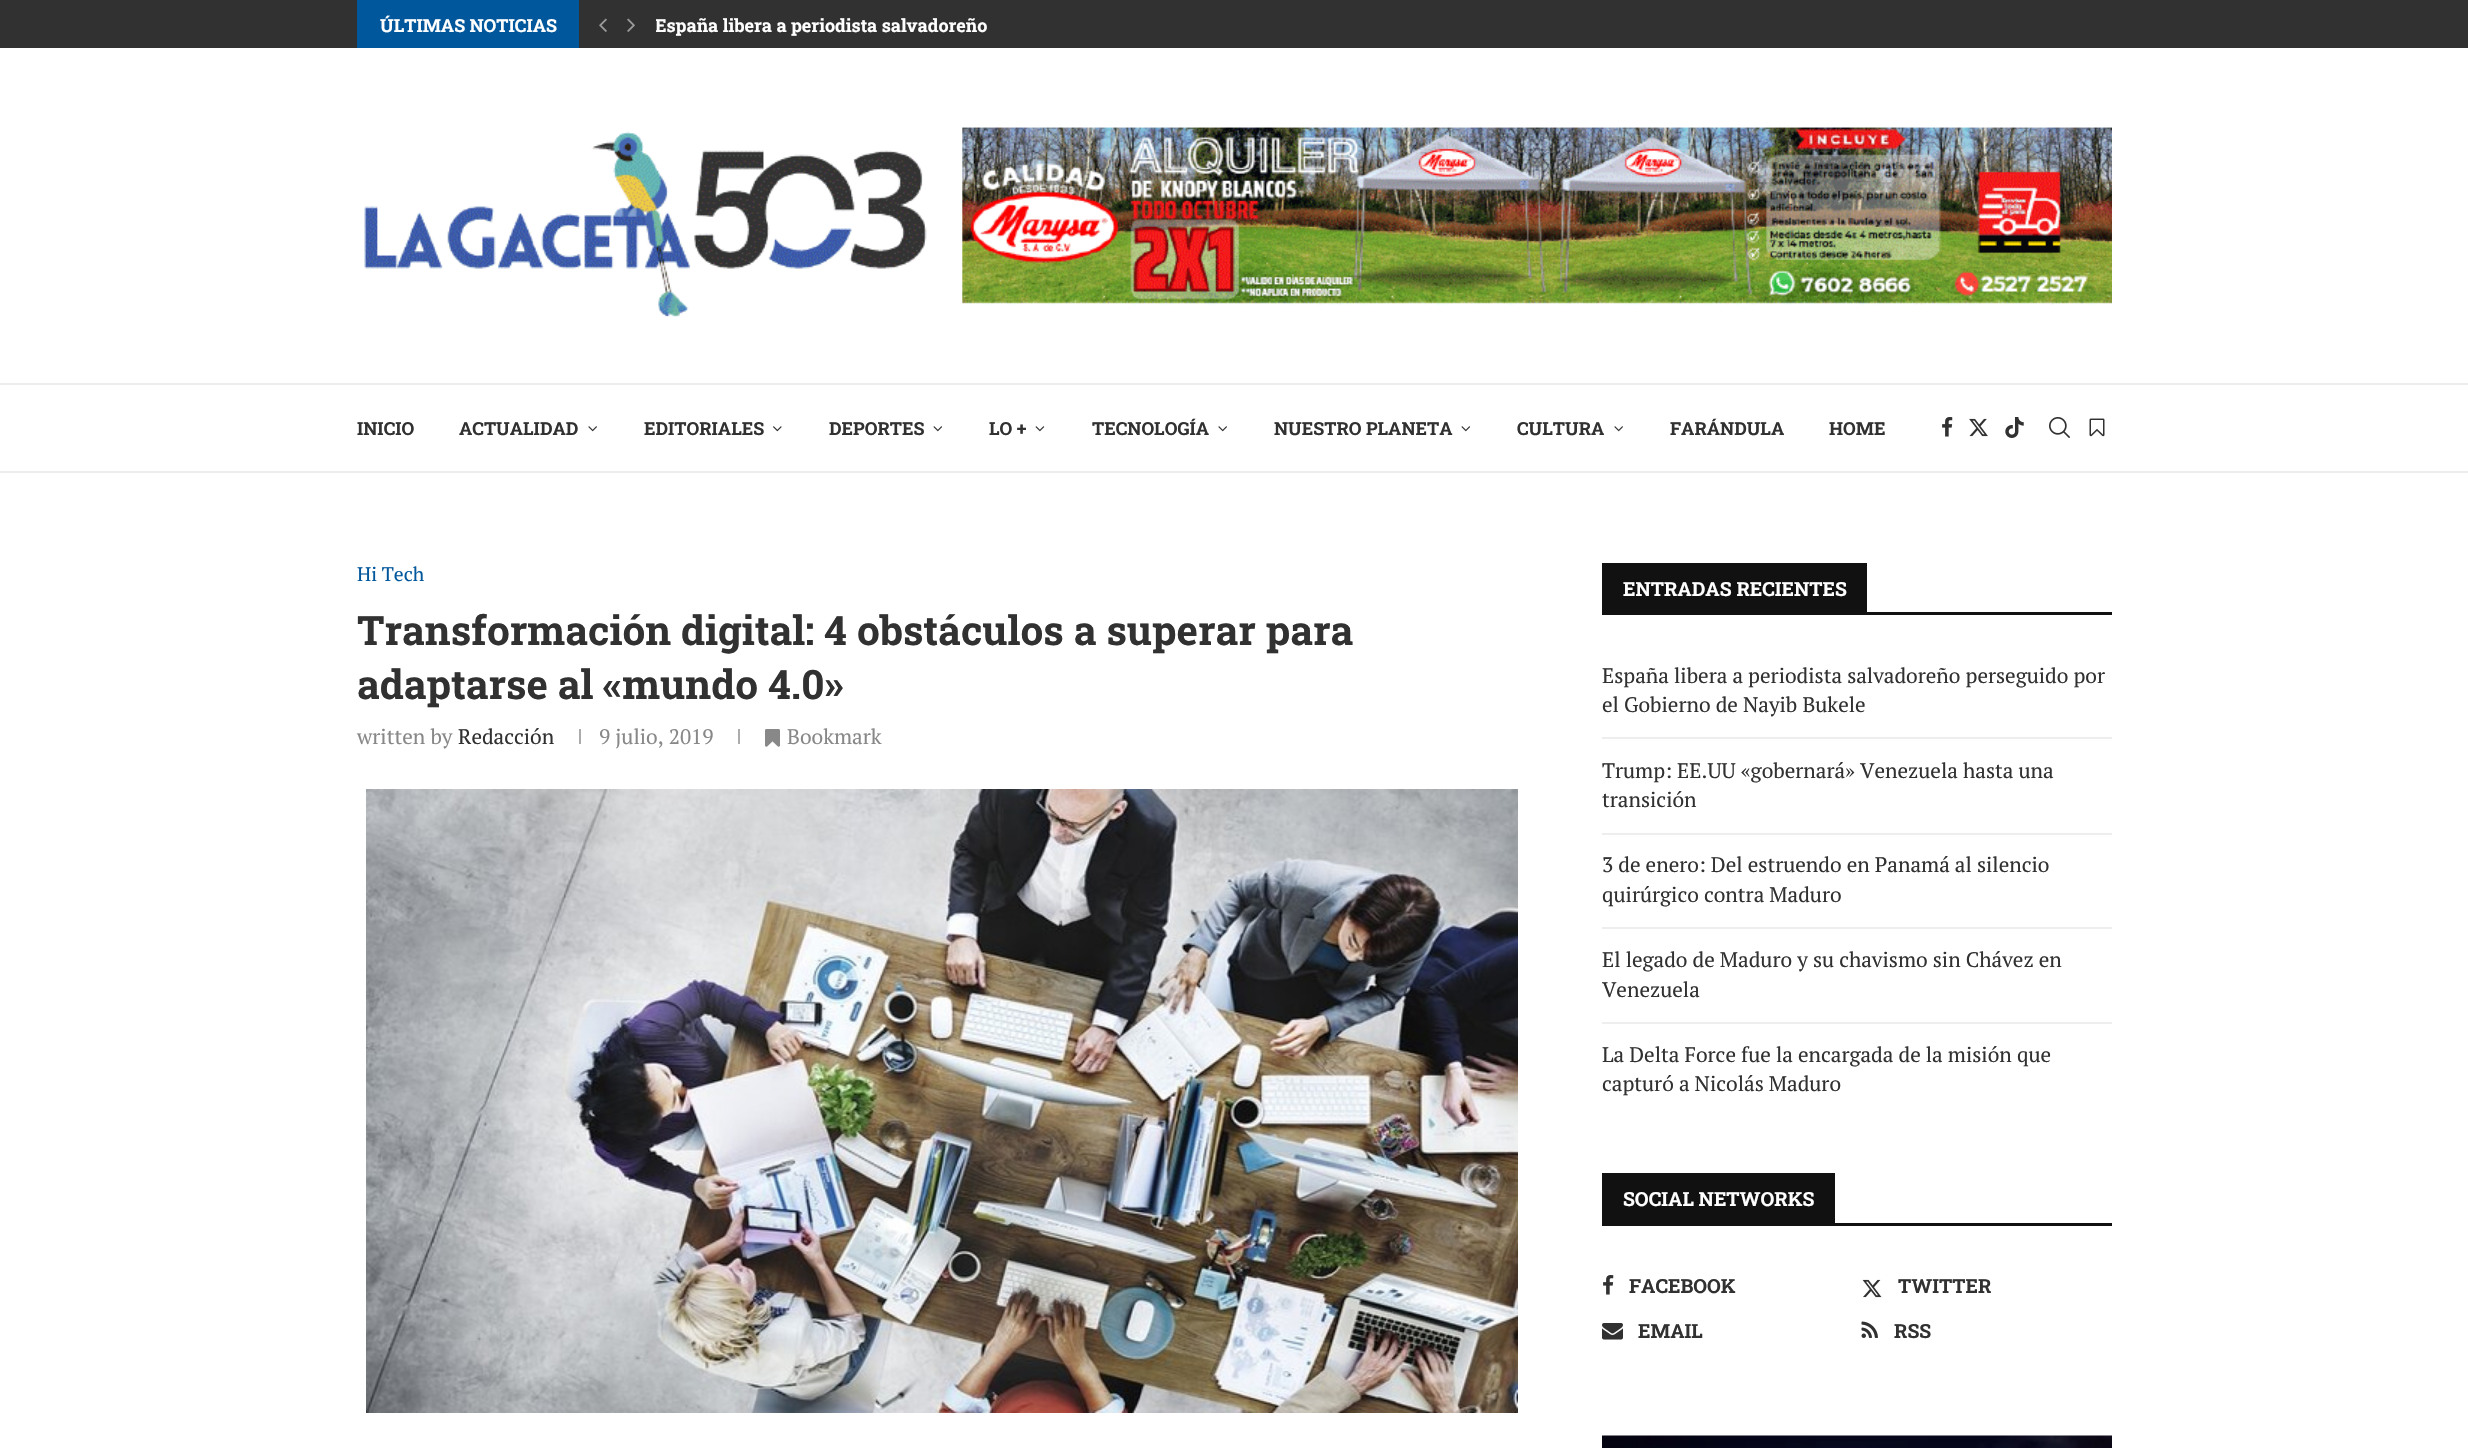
void draw(SkCanvas* canvas) {
	SkPaint paint;
	paint.setAntiAlias(true);
	canvas->clear(0xffffffff);
	paint.setColor(0xff313131);
	canvas->drawRect(SkRect::MakeXYWH(0, 0, 2468, 48), paint);
	paint.setColor(0xff01579b);
	canvas->drawRect(SkRect::MakeXYWH(357, 0, 222, 48), paint);
	SkFont f1(fontMgr->matchFamilyStyle("Roboto Slab", SkFontStyle::Bold()), 18);
	f1.setSubpixel(true);
	paint.setColor(0xffffffff);
	canvas->drawString("ÚLTIMAS NOTICIAS", 380, 32, f1, paint);
	canvas->drawImageRect(SkImages::DeferredFromEncodedData(SkData::MakeFromFileName("img1.png")), SkRect::MakeXYWH(599, 18, 8, 14), SkSamplingOptions());
	canvas->drawImageRect(SkImages::DeferredFromEncodedData(SkData::MakeFromFileName("img2.png")), SkRect::MakeXYWH(627, 18, 8, 14), SkSamplingOptions());
	canvas->save();
	canvas->clipRect(SkRect::MakeXYWH(656, 0, 331, 48));
	canvas->drawString("España libera a periodista salvadoreño", 655, 32, f1, paint);
	canvas->restore();
	canvas->drawImageRect(SkImages::DeferredFromEncodedData(SkData::MakeFromFileName("img3.png")), SkRect::MakeXYWH(364, 127, 1748, 191), SkSamplingOptions());
	paint.setColor(0xffececec);
	canvas->drawRect(SkRect::MakeXYWH(0, 383, 2468, 2), paint);
	canvas->drawRect(SkRect::MakeXYWH(0, 471, 2468, 2), paint);
	paint.setColor(0xff313131);
	canvas->drawString("INICIO", 357, 435, f1, paint);
	canvas->drawString("ACTUALIDAD", 459, 435, f1, paint);
	canvas->drawImageRect(SkImages::DeferredFromEncodedData(SkData::MakeFromFileName("img4.png")), SkRect::MakeXYWH(588, 426, 9, 6), SkSamplingOptions());
	canvas->drawString("EDITORIALES", 644, 435, f1, paint);
	canvas->drawImageRect(SkImages::DeferredFromEncodedData(SkData::MakeFromFileName("img5.png")), SkRect::MakeXYWH(773, 426, 9, 6), SkSamplingOptions());
	canvas->drawString("DEPORTES", 829, 435, f1, paint);
	canvas->drawImageRect(SkImages::DeferredFromEncodedData(SkData::MakeFromFileName("img6.png")), SkRect::MakeXYWH(933, 426, 10, 6), SkSamplingOptions());
	canvas->drawString("LO +", 989, 435, f1, paint);
	canvas->drawImageRect(SkImages::DeferredFromEncodedData(SkData::MakeFromFileName("img7.png")), SkRect::MakeXYWH(1035, 426, 10, 6), SkSamplingOptions());
	canvas->drawString("TECNOLOGÍA", 1092, 435, f1, paint);
	canvas->drawImageRect(SkImages::DeferredFromEncodedData(SkData::MakeFromFileName("img8.png")), SkRect::MakeXYWH(1218, 426, 9, 6), SkSamplingOptions());
	canvas->drawString("NUESTRO PLANETA", 1274, 435, f1, paint);
	canvas->drawImageRect(SkImages::DeferredFromEncodedData(SkData::MakeFromFileName("img9.png")), SkRect::MakeXYWH(1461, 426, 10, 6), SkSamplingOptions());
	canvas->drawString("CULTURA", 1517, 435, f1, paint);
	canvas->drawImageRect(SkImages::DeferredFromEncodedData(SkData::MakeFromFileName("img10.png")), SkRect::MakeXYWH(1614, 426, 9, 6), SkSamplingOptions());
	canvas->drawString("FARÁNDULA", 1670, 435, f1, paint);
	canvas->drawString("HOME", 1829, 435, f1, paint);
	canvas->drawImageRect(SkImages::DeferredFromEncodedData(SkData::MakeFromFileName("img11.png")), SkRect::MakeXYWH(1942, 417, 11, 20), SkSamplingOptions());
	canvas->drawImageRect(SkImages::DeferredFromEncodedData(SkData::MakeFromFileName("img12.png")), SkRect::MakeXYWH(1969, 418, 19, 19), SkSamplingOptions());
	canvas->drawImageRect(SkImages::DeferredFromEncodedData(SkData::MakeFromFileName("img13.png")), SkRect::MakeXYWH(2005, 417, 19, 21), SkSamplingOptions());
	canvas->drawImageRect(SkImages::DeferredFromEncodedData(SkData::MakeFromFileName("img14.png")), SkRect::MakeXYWH(2049, 417, 21, 21), SkSamplingOptions());
	canvas->drawImageRect(SkImages::DeferredFromEncodedData(SkData::MakeFromFileName("img15.png")), SkRect::MakeXYWH(2089, 418, 16, 19), SkSamplingOptions());
	SkFont f2(fontMgr->matchFamilyStyle("PT Serif", SkFontStyle::Normal()), 19.5);
	f2.setSubpixel(true);
	paint.setColor(0xff01579b);
	canvas->drawString("Hi Tech", 357, 581, f2, paint);
	SkFont f3(fontMgr->matchFamilyStyle("Roboto Slab", SkFontStyle::Bold()), 40.5);
	f3.setSubpixel(true);
	paint.setColor(0xff313131);
	canvas->drawString("Transformación digital: 4 obstáculos a superar para", 357, 645, f3, paint);
	canvas->drawString("adaptarse al «mundo 4.0»", 357, 699, f3, paint);
	SkFont f4(fontMgr->matchFamilyStyle("PT Serif", SkFontStyle::Normal()), 21);
	f4.setSubpixel(true);
	paint.setColor(0xff888888);
	canvas->drawString("written by", 357, 744, f4, paint);
	paint.setColor(0xff313131);
	canvas->drawString("Redacción", 458, 744, f4, paint);
	paint.setColor(0xffacacac);
	canvas->drawRect(SkRect::MakeXYWH(579, 729, 2, 15), paint);
	paint.setColor(0xff888888);
	canvas->drawString("9 julio, 2019", 599, 744, f4, paint);
	paint.setColor(0xffacacac);
	canvas->drawRect(SkRect::MakeXYWH(738, 729, 2, 15), paint);
	canvas->drawImageRect(SkImages::DeferredFromEncodedData(SkData::MakeFromFileName("img16.png")), SkRect::MakeXYWH(765, 729, 15, 18), SkSamplingOptions());
	paint.setColor(0xff888888);
	canvas->drawString("Bookmark", 787, 744, f4, paint);
	canvas->drawImageRect(SkImages::DeferredFromEncodedData(SkData::MakeFromFileName("img17.png")), SkRect::MakeXYWH(366, 789, 1152, 624), SkSamplingOptions());
	paint.setColor(0xff111111);
	canvas->drawRect(SkRect::MakeXYWH(1602, 612, 510, 3), paint);
	canvas->drawRect(SkRect::MakeXYWH(1605, 565, 260, 47), paint);
	canvas->drawRect(SkRect::MakeXYWH(1602, 563, 264, 2), paint);
	canvas->drawRect(SkRect::MakeXYWH(1865, 563, 2, 52), paint);
	canvas->drawRect(SkRect::MakeXYWH(1602, 563, 3, 52), paint);
	SkFont f5(fontMgr->matchFamilyStyle("Roboto Slab", SkFontStyle::Bold()), 19.5);
	f5.setSubpixel(true);
	paint.setColor(0xffffffff);
	canvas->drawString("ENTRADAS RECIENTES", 1623, 596, f5, paint);
	paint.setColor(0xffeeeeee);
	canvas->drawRect(SkRect::MakeXYWH(1602, 737, 510, 2), paint);
	paint.setColor(0xff313131);
	canvas->drawString("España libera a periodista salvadoreño perseguido por", 1602, 683, f4, paint);
	canvas->drawString("el Gobierno de Nayib Bukele", 1602, 712, f4, paint);
	paint.setColor(0xffeeeeee);
	canvas->drawRect(SkRect::MakeXYWH(1602, 833, 510, 2), paint);
	paint.setColor(0xff313131);
	canvas->drawString("Trump: EE.UU «gobernará» Venezuela hasta una", 1602, 778, f4, paint);
	canvas->drawString("transición", 1602, 807, f4, paint);
	paint.setColor(0xffeeeeee);
	canvas->drawRect(SkRect::MakeXYWH(1602, 927, 510, 2), paint);
	paint.setColor(0xff313131);
	canvas->drawString("3 de enero: Del estruendo en Panamá al silencio", 1602, 872, f4, paint);
	canvas->drawString("quirúrgico contra Maduro", 1602, 902, f4, paint);
	paint.setColor(0xffeeeeee);
	canvas->drawRect(SkRect::MakeXYWH(1602, 1022, 510, 2), paint);
	paint.setColor(0xff313131);
	canvas->drawString("El legado de Maduro y su chavismo sin Chávez en", 1602, 967, f4, paint);
	canvas->drawString("Venezuela", 1602, 997, f4, paint);
	canvas->drawString("La Delta Force fue la encargada de la misión que", 1602, 1062, f4, paint);
	canvas->drawString("capturó a Nicolás Maduro", 1602, 1091, f4, paint);
	paint.setColor(0xff111111);
	canvas->drawRect(SkRect::MakeXYWH(1602, 1223, 510, 3), paint);
	canvas->drawRect(SkRect::MakeXYWH(1605, 1175, 228, 48), paint);
	canvas->drawRect(SkRect::MakeXYWH(1602, 1173, 233, 2), paint);
	canvas->drawRect(SkRect::MakeXYWH(1833, 1173, 2, 53), paint);
	canvas->drawRect(SkRect::MakeXYWH(1602, 1173, 3, 53), paint);
	paint.setColor(0xffffffff);
	canvas->drawString("SOCIAL NETWORKS", 1623, 1206, f5, paint);
	canvas->drawImageRect(SkImages::DeferredFromEncodedData(SkData::MakeFromFileName("img11.png")), SkRect::MakeXYWH(1603, 1275, 11, 20), SkSamplingOptions());
	paint.setColor(0xff313131);
	canvas->drawString("FACEBOOK", 1629, 1293, f5, paint);
	canvas->drawImageRect(SkImages::DeferredFromEncodedData(SkData::MakeFromFileName("img18.png")), SkRect::MakeXYWH(1862, 1279, 20, 19), SkSamplingOptions());
	canvas->drawString("TWITTER", 1898, 1293, f5, paint);
	canvas->drawImageRect(SkImages::DeferredFromEncodedData(SkData::MakeFromFileName("img19.png")), SkRect::MakeXYWH(1602, 1323, 21, 17), SkSamplingOptions());
	canvas->drawString("EMAIL", 1638, 1338, f5, paint);
	canvas->drawImageRect(SkImages::DeferredFromEncodedData(SkData::MakeFromFileName("img20.png")), SkRect::MakeXYWH(1861, 1321, 17, 17), SkSamplingOptions());
	canvas->drawString("RSS", 1894, 1338, f5, paint);
	canvas->drawImageRect(SkImages::DeferredFromEncodedData(SkData::MakeFromFileName("img21.png")), SkRect::MakeXYWH(1602, 1435, 510, 13), SkSamplingOptions());
}
